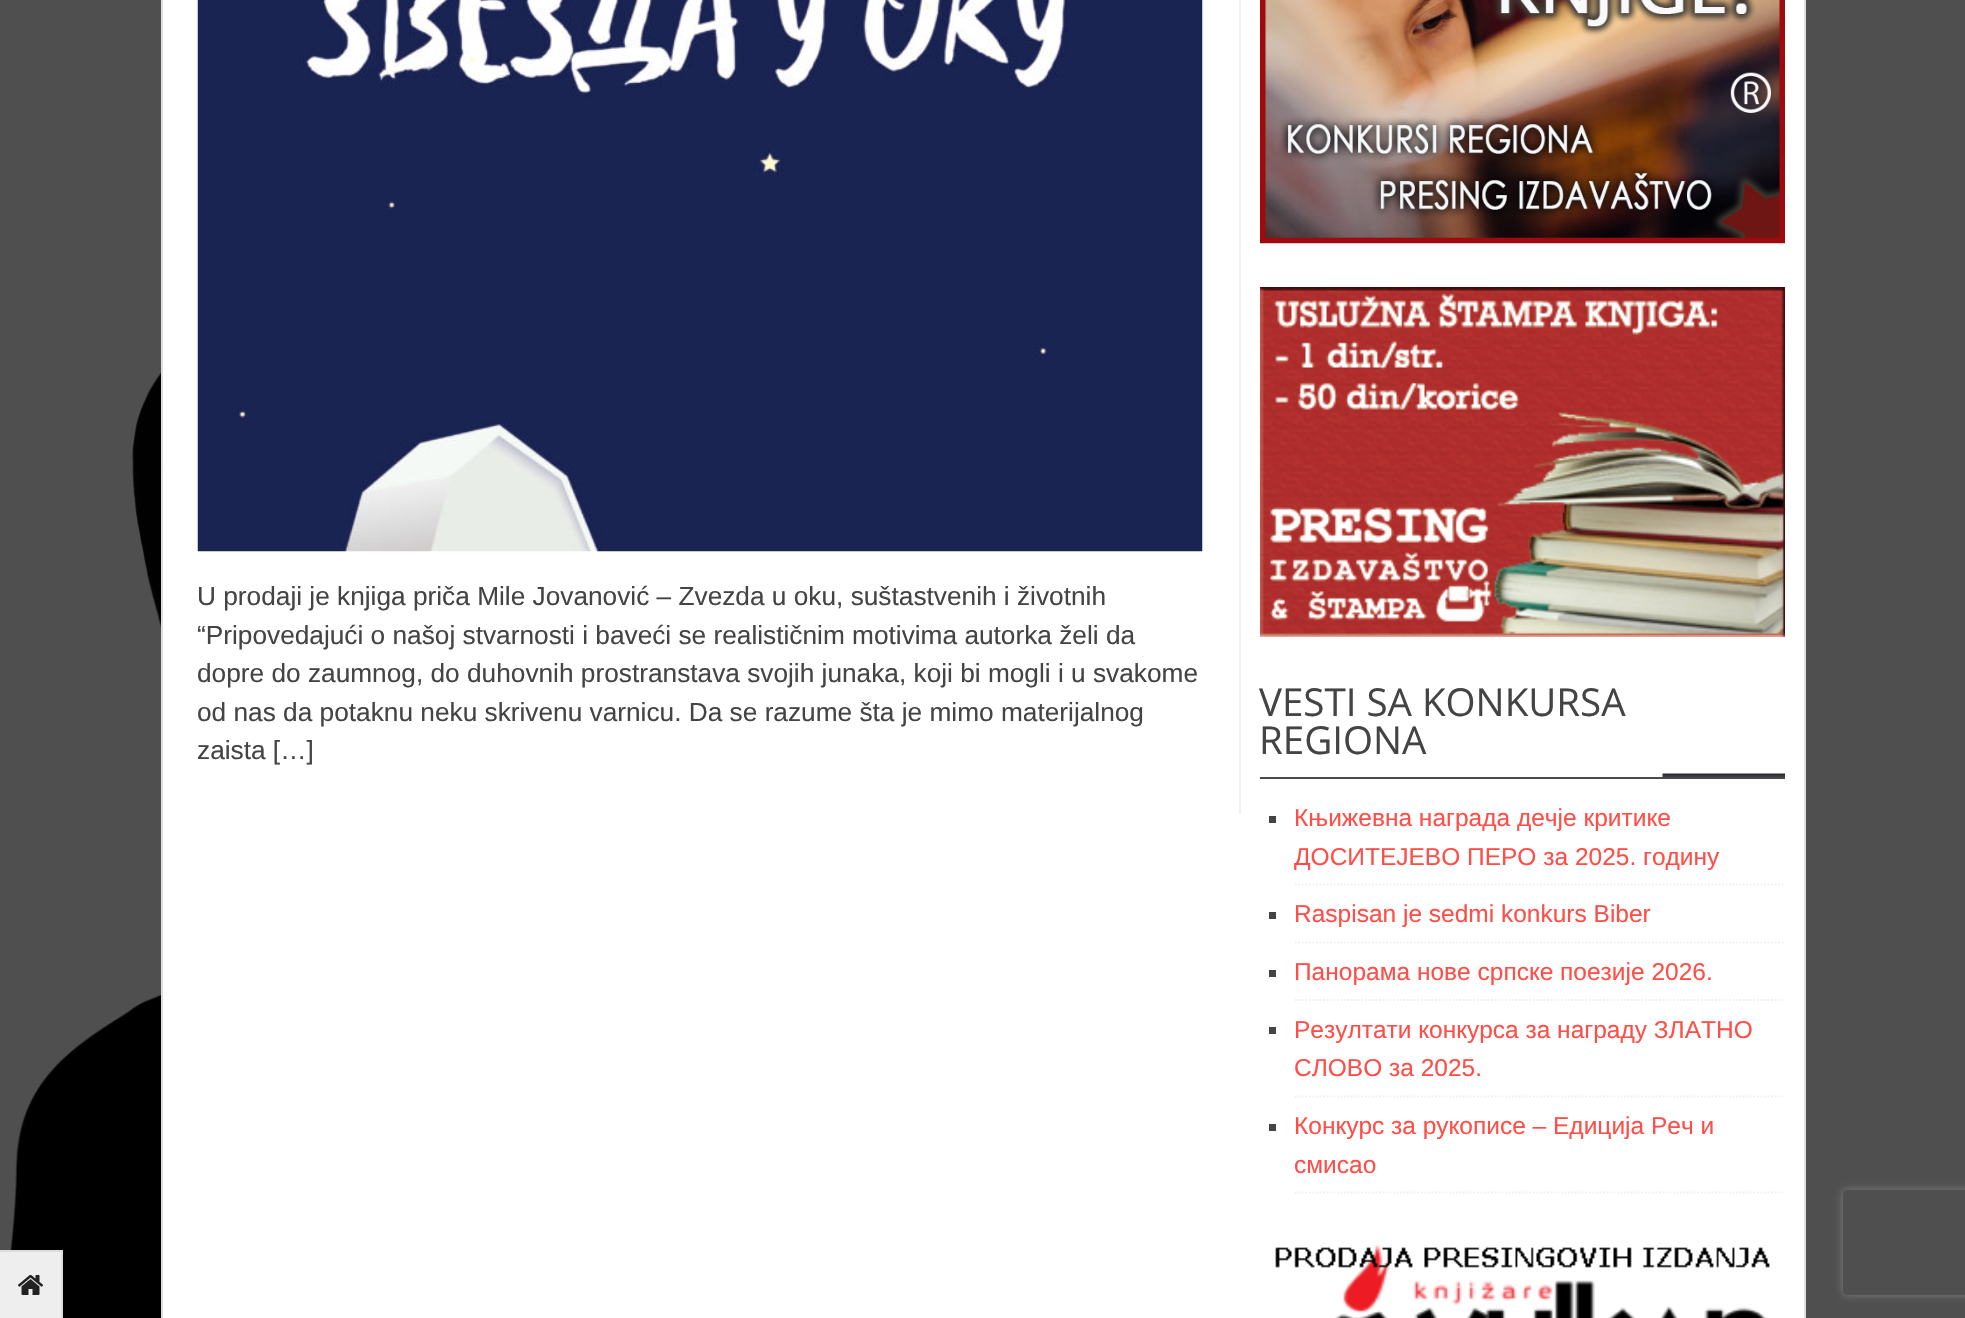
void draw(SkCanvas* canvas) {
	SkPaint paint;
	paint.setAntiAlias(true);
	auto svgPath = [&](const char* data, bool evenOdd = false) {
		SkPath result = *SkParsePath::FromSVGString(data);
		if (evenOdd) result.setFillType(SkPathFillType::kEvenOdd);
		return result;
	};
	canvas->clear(0xff4f4f4f);
	canvas->drawImageRect(SkImages::DeferredFromEncodedData(SkData::MakeFromFileName("img1.png")), SkRect::MakeXYWH(10, 372, 151, 946), SkSamplingOptions());
	paint.setColor(0xffffffff);
	canvas->drawRect(SkRect::MakeXYWH(163, 0, 1641, 1318), paint);
	paint.setColor(0xffdddddd);
	canvas->drawRect(SkRect::MakeXYWH(1804, 0, 2, 1318), paint);
	canvas->drawRect(SkRect::MakeXYWH(161, 0, 2, 1318), paint);
	paint.setColor(0xffefefef);
	canvas->drawRect(SkRect::MakeXYWH(1239, 0, 2, 814), paint);
	canvas->drawImageRect(SkImages::DeferredFromEncodedData(SkData::MakeFromFileName("img2.png")), SkRect::MakeXYWH(197, 0, 1006, 552), SkSamplingOptions());
	SkFont f1(fontMgr->matchFamilyStyle("Liberation Sans", SkFontStyle::Normal()), 26.25);
	f1.setSubpixel(true);
	paint.setColor(0xff444444);
	canvas->drawString("U prodaji je knjiga priča Mile Jovanović – Zvezda u oku, suštastvenih i životnih", 197, 605, f1, paint);
	canvas->drawString("“Pripovedajući o našoj stvarnosti i baveći se realističnim motivima autorka želi da", 197, 644, f1, paint);
	canvas->drawString("dopre do zaumnog, do duhovnih prostranstava svojih junaka, koji bi mogli i u svakome", 197, 682, f1, paint);
	canvas->drawString("od nas da potaknu neku skrivenu varnicu. Da se razume šta je mimo materijalnog", 197, 721, f1, paint);
	canvas->drawString("zaista […]", 197, 759, f1, paint);
	canvas->drawImageRect(SkImages::DeferredFromEncodedData(SkData::MakeFromFileName("img3.png")), SkRect::MakeXYWH(1260, 0, 525, 244), SkSamplingOptions());
	canvas->drawImageRect(SkImages::DeferredFromEncodedData(SkData::MakeFromFileName("img4.png")), SkRect::MakeXYWH(1260, 287, 525, 350), SkSamplingOptions());
	canvas->drawImageRect(SkImages::DeferredFromEncodedData(SkData::MakeFromFileName("img5.png")), SkRect::MakeXYWH(1662, 773, 123, 4), SkSamplingOptions());
	paint.setColor(0xff4a4a4a);
	canvas->drawRect(SkRect::MakeXYWH(1260, 777, 525, 2), paint);
	SkFont f2(fontMgr->matchFamilyStyle("Open Sans", SkFontStyle::Normal()), 38.5);
	f2.setSubpixel(true);
	paint.setColor(0xff444444);
	canvas->drawString("VESTI SA KONKURSA", 1259, 716, f2, paint);
	canvas->drawString("REGIONA", 1259, 754, f2, paint);
	paint.setStroke(true);
	paint.setStrokeWidth(1.8);
	paint.setColor(0xffefefef);
	paint.setPathEffect(SkDashPathEffect::Make({{1.75f, 1.75f}}, 0));
	canvas->drawPath(svgPath("M1295 884.5H1785"), paint);
	paint.setPathEffect(nullptr);
	paint.setStroke(false);
	paint.setColor(0xff444444);
	canvas->drawRect(SkRect::MakeXYWH(1269, 816, 7, 7), paint);
	SkFont f3(fontMgr->matchFamilyStyle("Liberation Sans", SkFontStyle::Normal()), 24.5);
	f3.setSubpixel(true);
	paint.setColor(0xfffe4e47);
	canvas->drawString("Књижевнa наградa дечје критике", 1294, 826, f3, paint);
	canvas->drawString("ДОСИТЕЈЕВО ПЕРО за 2025. годину", 1294, 865, f3, paint);
	paint.setStroke(true);
	paint.setColor(0xffefefef);
	paint.setPathEffect(SkDashPathEffect::Make({{1.75f, 1.75f}}, 0));
	canvas->drawPath(svgPath("M1295 942.5H1785"), paint);
	paint.setPathEffect(nullptr);
	paint.setStroke(false);
	paint.setColor(0xff444444);
	canvas->drawRect(SkRect::MakeXYWH(1269, 912, 7, 7), paint);
	paint.setColor(0xfffe4e47);
	canvas->drawString("Raspisan je sedmi konkurs Biber", 1294, 922, f3, paint);
	paint.setStroke(true);
	paint.setColor(0xffefefef);
	paint.setPathEffect(SkDashPathEffect::Make({{1.75f, 1.75f}}, 0));
	canvas->drawPath(svgPath("M1295 1000H1785"), paint);
	paint.setPathEffect(nullptr);
	paint.setStroke(false);
	paint.setColor(0xff444444);
	canvas->drawRect(SkRect::MakeXYWH(1269, 970, 7, 7), paint);
	paint.setColor(0xfffe4e47);
	canvas->drawString("Панорама нове српске поезије 2026.", 1294, 980, f3, paint);
	paint.setStroke(true);
	paint.setColor(0xffefefef);
	paint.setPathEffect(SkDashPathEffect::Make({{1.75f, 1.75f}}, 0));
	canvas->drawPath(svgPath("M1295 1096.5H1785"), paint);
	paint.setPathEffect(nullptr);
	paint.setStroke(false);
	paint.setColor(0xff444444);
	canvas->drawRect(SkRect::MakeXYWH(1269, 1027, 7, 7), paint);
	paint.setColor(0xfffe4e47);
	canvas->drawString("Резултати конкурса за награду ЗЛАТНО", 1294, 1038, f3, paint);
	canvas->drawString("СЛОВО за 2025.", 1294, 1076, f3, paint);
	paint.setStroke(true);
	paint.setColor(0xffefefef);
	paint.setPathEffect(SkDashPathEffect::Make({{1.75f, 1.75f}}, 0));
	canvas->drawPath(svgPath("M1295 1192.5H1785"), paint);
	paint.setPathEffect(nullptr);
	paint.setStroke(false);
	paint.setColor(0xff444444);
	canvas->drawRect(SkRect::MakeXYWH(1269, 1124, 7, 7), paint);
	paint.setColor(0xfffe4e47);
	canvas->drawString("Конкурс за рукописе – Едиција Реч и", 1294, 1134, f3, paint);
	canvas->drawString("смисао", 1294, 1173, f3, paint);
	canvas->drawImageRect(SkImages::DeferredFromEncodedData(SkData::MakeFromFileName("img6.png")), SkRect::MakeXYWH(1275, 1244, 495, 74), SkSamplingOptions());
	paint.setColor(0xffeeeeee);
	canvas->drawRect(SkRect::MakeXYWH(0, 1252, 61, 66), paint);
	paint.setColor(0xffdddddd);
	canvas->drawRect(SkRect::MakeXYWH(0, 1250, 63, 2), paint);
	canvas->drawRect(SkRect::MakeXYWH(61, 1250, 2, 68), paint);
	canvas->drawImageRect(SkImages::DeferredFromEncodedData(SkData::MakeFromFileName("img7.png")), SkRect::MakeXYWH(18, 1275, 25, 20), SkSamplingOptions());
	canvas->save();
	canvas->clipPath(svgPath("M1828 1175H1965V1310H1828ZM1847 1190H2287C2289 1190 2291 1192 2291 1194V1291C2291 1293 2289 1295 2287 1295H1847C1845 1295 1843 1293 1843 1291V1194C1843 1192 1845 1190 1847 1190Z", true), true);
	paint.setColor(0xff808080);
	paint.setMaskFilter(SkMaskFilter::MakeBlur(kNormal_SkBlurStyle, 4.5));
	canvas->drawRoundRect(SkRect::MakeXYWH(1843, 1190, 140, 105), 4, 4, paint);
	paint.setMaskFilter(nullptr);
	canvas->restore();
}
